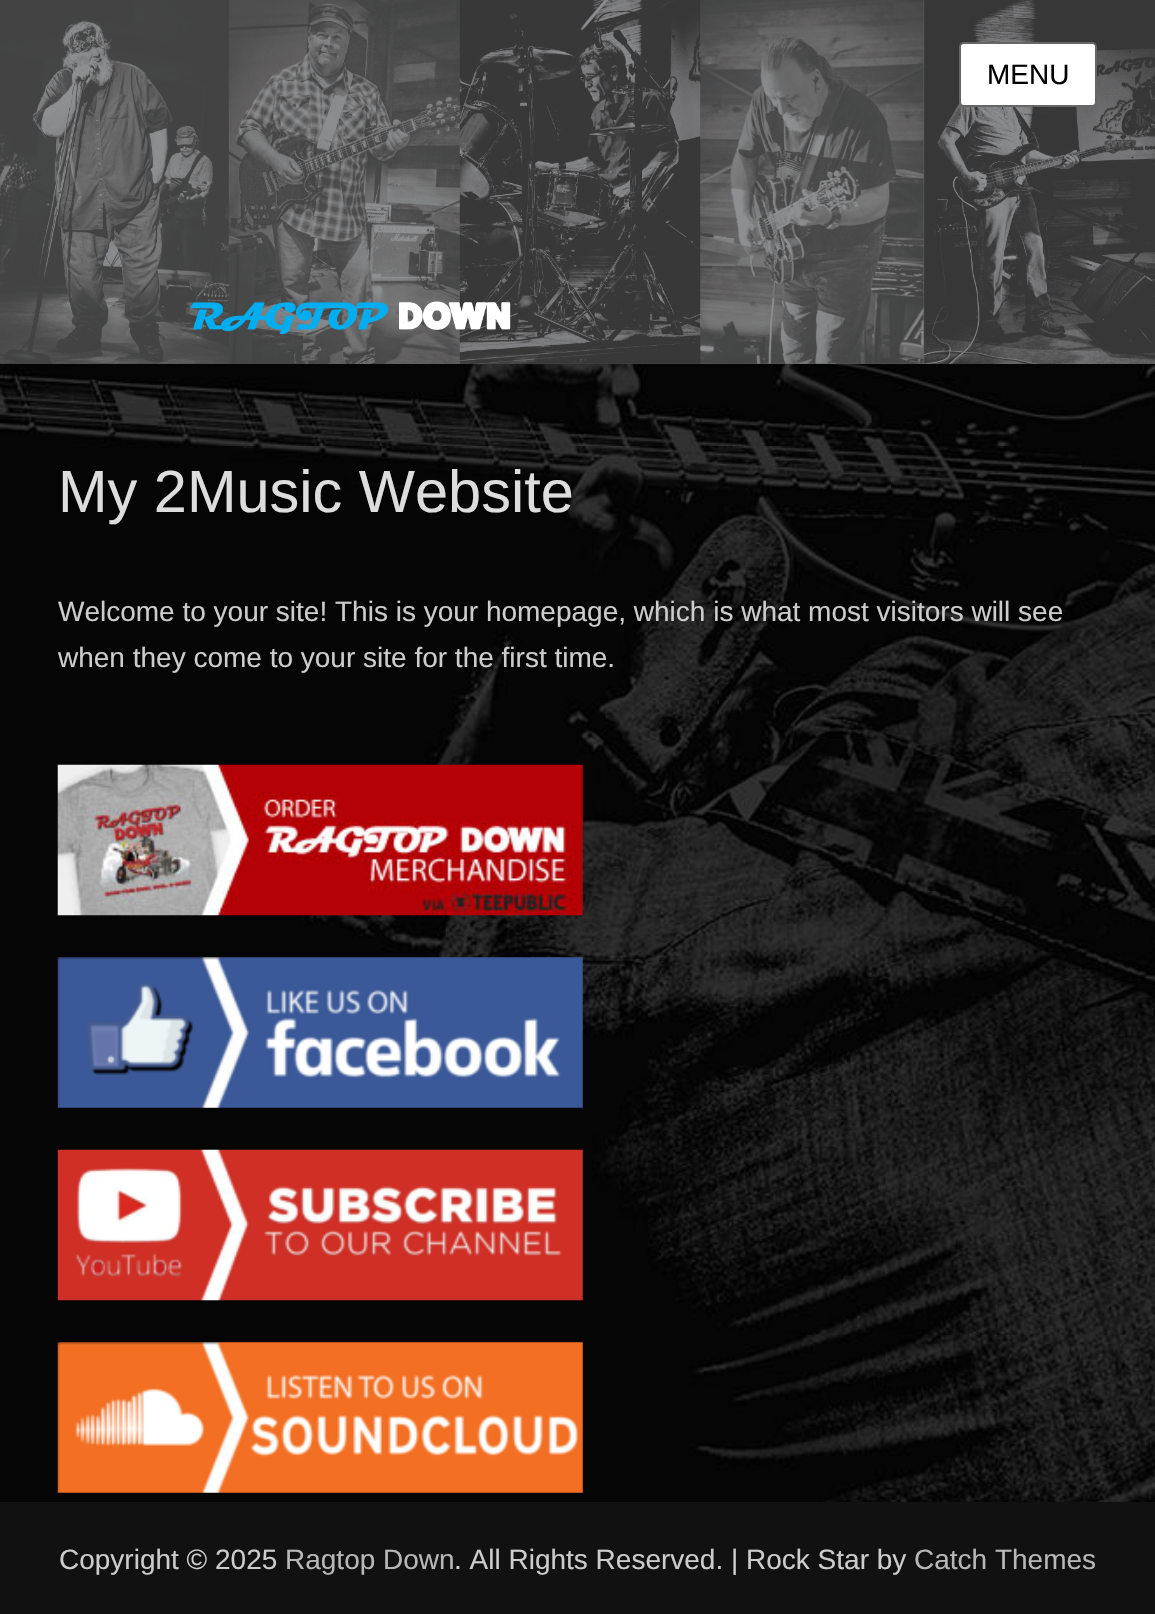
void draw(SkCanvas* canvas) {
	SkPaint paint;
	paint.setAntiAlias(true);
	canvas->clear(0xffffffff);
	canvas->drawImageRect(SkImages::DeferredFromEncodedData(SkData::MakeFromFileName("img1.png")), SkRect::MakeXYWH(0, 364, 1155, 1138), SkSamplingOptions());
	canvas->drawImageRect(SkImages::DeferredFromEncodedData(SkData::MakeFromFileName("img2.png")), SkRect::MakeXYWH(0, 0, 1155, 364), SkSamplingOptions());
	paint.setColor(0xffffffff);
	canvas->drawRoundRect(SkRect::MakeXYWH(960, 43, 136, 63), 4, 4, paint);
	paint.setStroke(true);
	paint.setStrokeWidth(2);
	paint.setColor(0xff666666);
	canvas->drawRoundRect(SkRect::MakeXYWH(960, 43, 136, 63), 4, 4, paint);
	SkFont f1(fontMgr->matchFamilyStyle("Liberation Sans", SkFontStyle::Normal()), 28);
	f1.setSubpixel(true);
	paint.setStroke(false);
	paint.setColor(0xff000000);
	canvas->drawString("MENU", 987, 84, f1, paint);
	SkFont f2(fontMgr->matchFamilyStyle("Liberation Sans", SkFontStyle::Normal()), 59.5);
	f2.setSubpixel(true);
	paint.setColor(0xffdddddd);
	canvas->drawString("My 2Music Website", 58, 512, f2, paint);
	paint.setColor(0xffcccccc);
	canvas->drawString("Welcome to your site! This is your homepage, which is what most visitors will see", 58, 621, f1, paint);
	canvas->drawString("when they come to your site for the first time.", 58, 667, f1, paint);
	canvas->drawImageRect(SkImages::DeferredFromEncodedData(SkData::MakeFromFileName("img3.png")), SkRect::MakeXYWH(57, 764, 526, 152), SkSamplingOptions());
	canvas->drawImageRect(SkImages::DeferredFromEncodedData(SkData::MakeFromFileName("img4.png")), SkRect::MakeXYWH(57, 957, 526, 151), SkSamplingOptions());
	canvas->drawImageRect(SkImages::DeferredFromEncodedData(SkData::MakeFromFileName("img5.png")), SkRect::MakeXYWH(57, 1149, 526, 152), SkSamplingOptions());
	canvas->drawImageRect(SkImages::DeferredFromEncodedData(SkData::MakeFromFileName("img6.png")), SkRect::MakeXYWH(57, 1342, 526, 151), SkSamplingOptions());
	paint.setColor(0xff111111);
	canvas->drawRect(SkRect::MakeXYWH(0, 1502, 1155, 112), paint);
	paint.setColor(0xffcccccc);
	canvas->drawString("Copyright © 2025", 59, 1569, f1, paint);
	paint.setColor(0xffb7b7b7);
	canvas->drawString("Ragtop Down", 285, 1569, f1, paint);
	paint.setColor(0xffcccccc);
	canvas->drawString(". All Rights Reserved. | Rock Star by", 454, 1569, f1, paint);
	paint.setColor(0xffb7b7b7);
	canvas->drawString("Catch Themes", 914, 1569, f1, paint);
}
